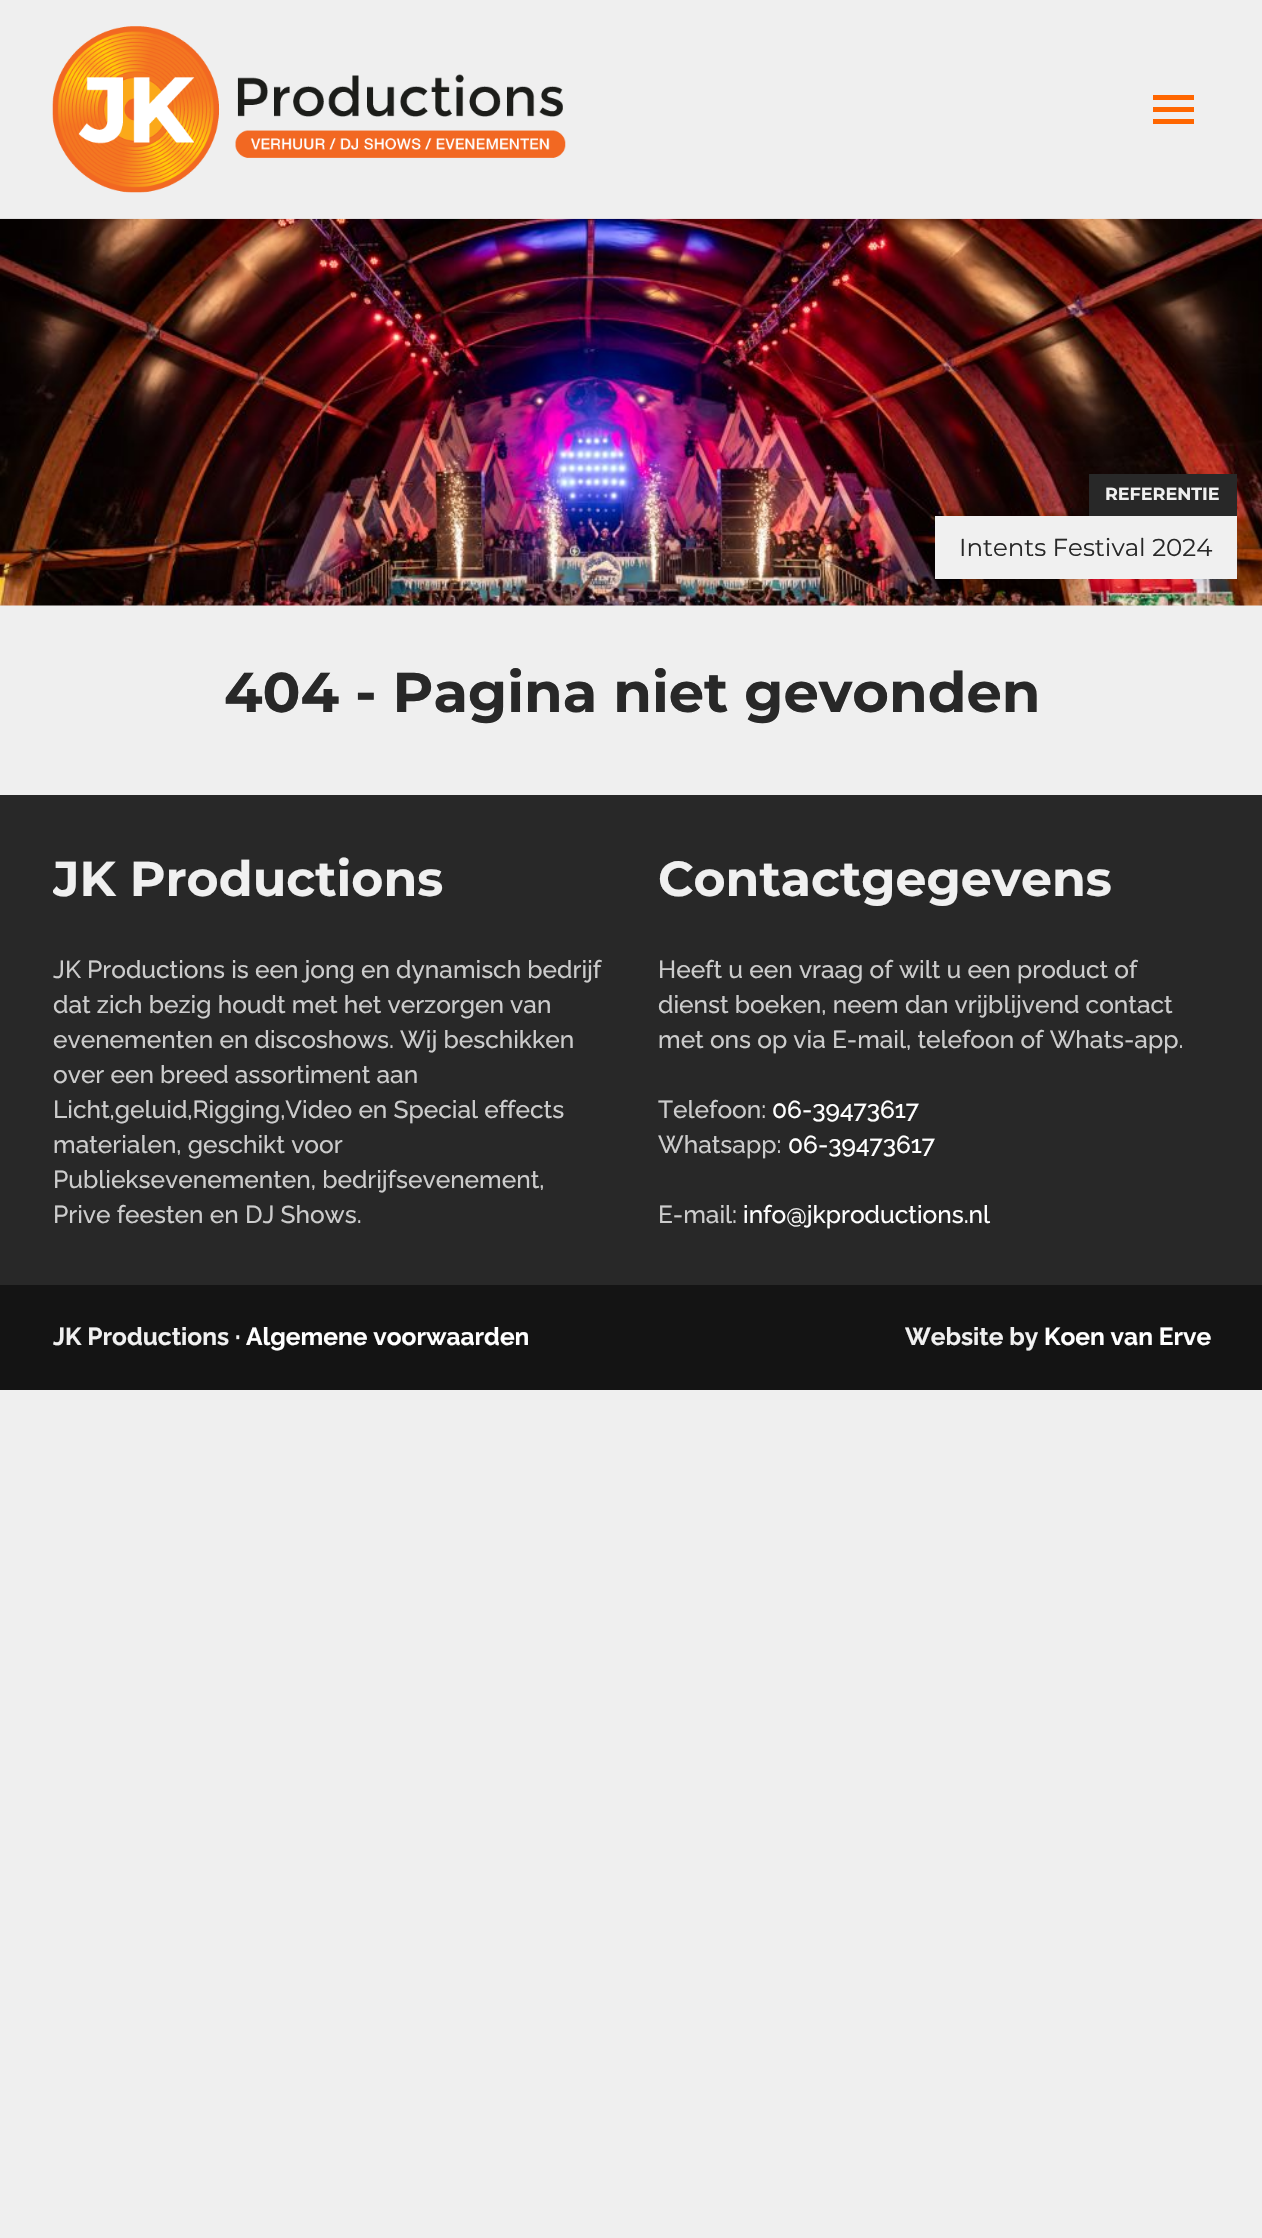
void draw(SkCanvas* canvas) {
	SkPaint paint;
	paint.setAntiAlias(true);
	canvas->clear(0xffefefef);
	canvas->drawImageRect(SkImages::DeferredFromEncodedData(SkData::MakeFromFileName("img1.png")), SkRect::MakeXYWH(52, 26, 514, 167), SkSamplingOptions());
	paint.setColor(0xffff6600);
	canvas->drawRect(SkRect::MakeXYWH(1153, 95, 41, 5), paint);
	canvas->drawRect(SkRect::MakeXYWH(1153, 107, 41, 5), paint);
	canvas->drawRect(SkRect::MakeXYWH(1153, 119, 41, 5), paint);
	canvas->drawImageRect(SkImages::DeferredFromEncodedData(SkData::MakeFromFileName("img2.png")), SkRect::MakeXYWH(0, 218, 1262, 388), SkSamplingOptions());
	paint.setColor(0xff282828);
	canvas->drawRect(SkRect::MakeXYWH(1089, 474, 148, 42), paint);
	SkFont f1(fontMgr->matchFamilyStyle("Montserrat", SkFontStyle::Bold()), 17.5);
	f1.setSubpixel(true);
	paint.setColor(0xfff0f0f0);
	canvas->drawString("REFERENTIE", 1105, 500, f1, paint);
	canvas->drawRect(SkRect::MakeXYWH(935, 516, 302, 63), paint);
	SkFont f2(fontMgr->matchFamilyStyle("Montserrat", SkFontStyle::Normal()), 24.5);
	f2.setSubpixel(true);
	paint.setColor(0xff282828);
	canvas->drawString("Intents Festival 2024", 959, 556, f2, paint);
	SkFont f3(fontMgr->matchFamilyStyle("Montserrat", SkFontStyle::Bold()), 56);
	f3.setSubpixel(true);
	canvas->drawString("404 - Pagina niet gevonden", 224, 712, f3, paint);
	canvas->drawRect(SkRect::MakeXYWH(0, 795, 1262, 490), paint);
	canvas->save();
	canvas->clipRect(SkRect::MakeXYWH(53, 847, 1158, 385));
	SkFont f4(fontMgr->matchFamilyStyle("Montserrat", SkFontStyle::Bold()), 49);
	f4.setSubpixel(true);
	paint.setColor(0xfff0f0f0);
	canvas->drawString("JK Productions", 53, 896, f4, paint);
	canvas->restore();
	SkFont f5(fontMgr->matchFamilyStyle("Raleway", SkFontStyle(500, SkFontStyle::kNormal_Width, SkFontStyle::kUpright_Slant)), 24.5);
	f5.setSubpixel(true);
	paint.setColor(0xffcccccc);
	canvas->drawString("JK Productions is een jong en dynamisch bedrijf", 53, 978, f5, paint);
	canvas->drawString("dat zich bezig houdt met het verzorgen van", 53, 1013, f5, paint);
	canvas->drawString("evenementen en discoshows. Wij beschikken", 53, 1048, f5, paint);
	canvas->drawString("over een breed assortiment aan", 53, 1083, f5, paint);
	canvas->drawString("Licht,geluid,Rigging,Video en Special effects", 53, 1118, f5, paint);
	canvas->drawString("materialen, geschikt voor", 53, 1153, f5, paint);
	canvas->drawString("Publieksevenementen, bedrijfsevenement,", 53, 1188, f5, paint);
	canvas->drawString("Prive feesten en DJ Shows.", 53, 1223, f5, paint);
	paint.setColor(0xfff0f0f0);
	canvas->drawString("Contactgegevens", 658, 896, f4, paint);
	paint.setColor(0xffcccccc);
	canvas->drawString("Heeft u een vraag of wilt u een product of", 658, 978, f5, paint);
	canvas->drawString("dienst boeken, neem dan vrijblijvend contact", 658, 1013, f5, paint);
	canvas->drawString("met ons op via E-mail, telefoon of Whats-app.", 658, 1048, f5, paint);
	canvas->drawString("Telefoon:", 658, 1118, f5, paint);
	paint.setColor(0xffffffff);
	canvas->drawString("06-39473617", 772, 1118, f5, paint);
	paint.setColor(0xffcccccc);
	canvas->drawString("Whatsapp:", 658, 1153, f5, paint);
	paint.setColor(0xffffffff);
	canvas->drawString("06-39473617", 788, 1153, f5, paint);
	paint.setColor(0xffcccccc);
	canvas->drawString("E-mail:", 658, 1223, f5, paint);
	paint.setColor(0xffffffff);
	canvas->drawString("info@jkproductions.nl", 743, 1223, f5, paint);
	paint.setColor(0xff141414);
	canvas->drawRect(SkRect::MakeXYWH(0, 1285, 1262, 105), paint);
	SkFont f6(fontMgr->matchFamilyStyle("Raleway", SkFontStyle::Bold()), 24.5);
	f6.setSubpixel(true);
	paint.setColor(0xfff0f0f0);
	canvas->drawString("JK Productions ·", 53, 1345, f6, paint);
	paint.setColor(0xffffffff);
	canvas->drawString("Algemene voorwaarden", 246, 1345, f6, paint);
	paint.setColor(0xfff0f0f0);
	canvas->drawString("Website by", 905, 1345, f6, paint);
	paint.setColor(0xffffffff);
	canvas->drawString("Koen van Erve", 1044, 1345, f6, paint);
}
